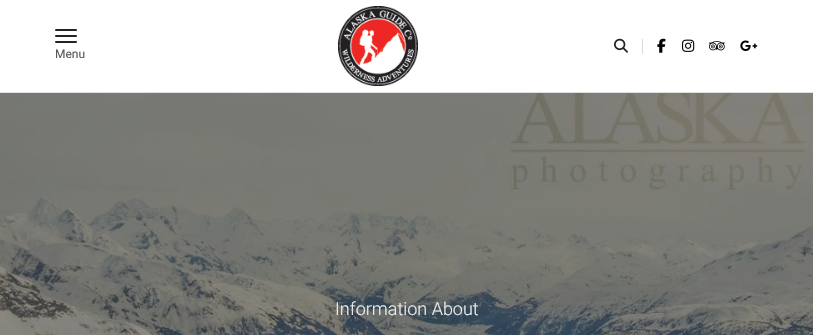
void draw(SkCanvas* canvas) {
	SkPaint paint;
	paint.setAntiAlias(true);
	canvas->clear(0xffffffff);
	paint.setColor(0xffe0e0e0);
	canvas->drawRect(SkRect::MakeXYWH(0, 92, 813, 1), paint);
	paint.setColor(0xff232323);
	canvas->drawRoundRect(SkRect::MakeXYWH(55, 29, 22, 2), 1, 1, paint);
	canvas->drawRoundRect(SkRect::MakeXYWH(55, 35, 22, 2), 1, 1, paint);
	canvas->drawRoundRect(SkRect::MakeXYWH(55, 41, 22, 2), 1, 1, paint);
	SkFont f1(fontMgr->matchFamilyStyle("Roboto", SkFontStyle::Normal()), 12);
	f1.setSubpixel(true);
	paint.setColor(0xff595959);
	canvas->drawString("Menu", 55, 58, f1, paint);
	canvas->drawImageRect(SkImages::DeferredFromEncodedData(SkData::MakeFromFileName("img1.png")), SkRect::MakeXYWH(338, 6, 80, 80), SkSamplingOptions());
	canvas->drawImageRect(SkImages::DeferredFromEncodedData(SkData::MakeFromFileName("img2.png")), SkRect::MakeXYWH(614, 38, 14, 15), SkSamplingOptions());
	paint.setColor(0xffd9d9d9);
	canvas->drawRect(SkRect::MakeXYWH(642, 39, 1, 15), paint);
	canvas->drawImageRect(SkImages::DeferredFromEncodedData(SkData::MakeFromFileName("img3.png")), SkRect::MakeXYWH(657, 38, 9, 15), SkSamplingOptions());
	canvas->drawImageRect(SkImages::DeferredFromEncodedData(SkData::MakeFromFileName("img4.png")), SkRect::MakeXYWH(682, 39, 13, 13), SkSamplingOptions());
	canvas->drawImageRect(SkImages::DeferredFromEncodedData(SkData::MakeFromFileName("img5.png")), SkRect::MakeXYWH(709, 41, 16, 10), SkSamplingOptions());
	canvas->drawImageRect(SkImages::DeferredFromEncodedData(SkData::MakeFromFileName("img6.png")), SkRect::MakeXYWH(740, 40, 18, 11), SkSamplingOptions());
	canvas->drawImageRect(SkImages::DeferredFromEncodedData(SkData::MakeFromFileName("img7.png")), SkRect::MakeXYWH(0, 93, 813, 242), SkSamplingOptions());
	SkFont f2(fontMgr->matchFamilyStyle("Roboto", SkFontStyle(300, SkFontStyle::kNormal_Width, SkFontStyle::kUpright_Slant)), 18);
	f2.setSubpixel(true);
	paint.setColor(0xffededed);
	canvas->drawString("Information About", 335, 315, f2, paint);
}
